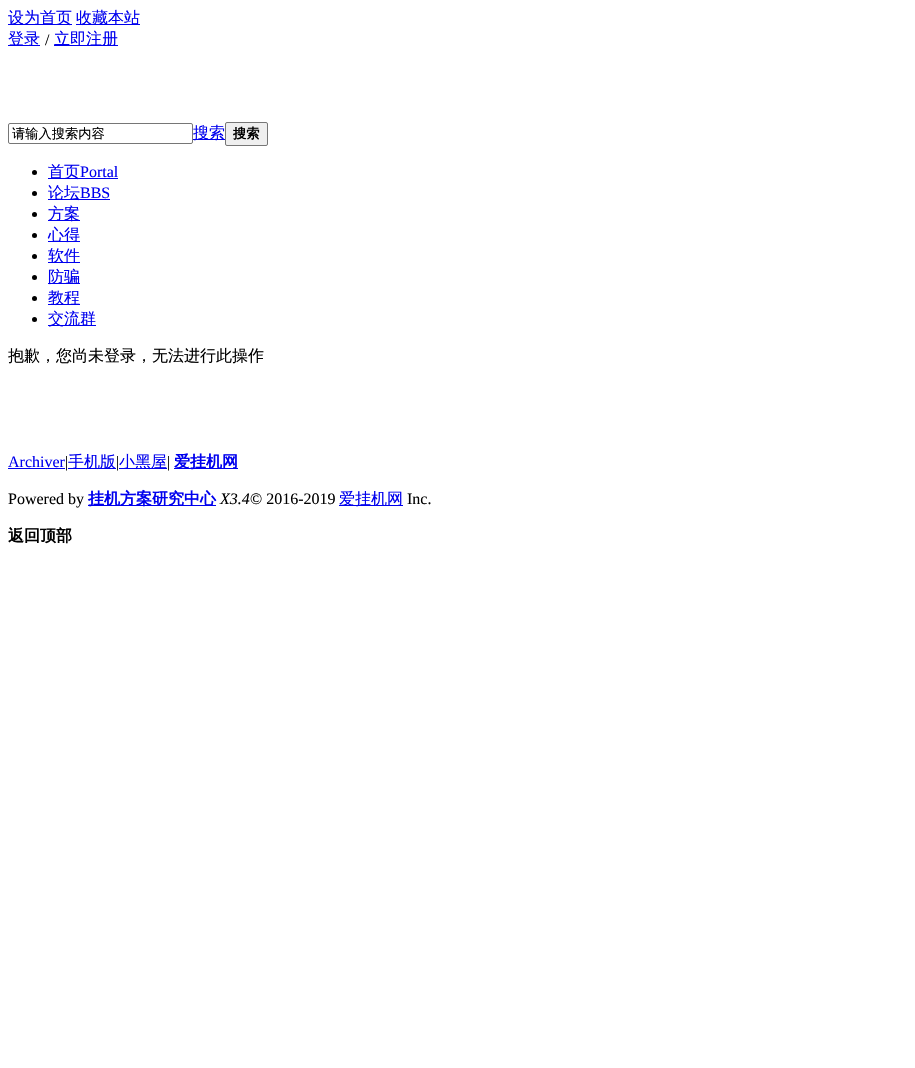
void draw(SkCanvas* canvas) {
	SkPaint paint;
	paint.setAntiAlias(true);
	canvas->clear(0xffffffff);
	paint.setColor(0xff0000ee);
	canvas->drawRect(SkRect::MakeXYWH(8, 24, 64, 1), paint);
	SkFont f1(fontMgr->matchFamilyStyle("WenQuanYi Zen Hei", SkFontStyle(500, SkFontStyle::kNormal_Width, SkFontStyle::kUpright_Slant)), 16);
	f1.setSubpixel(true);
	canvas->drawString("设为首页", 8, 23, f1, paint);
	canvas->drawRect(SkRect::MakeXYWH(76, 24, 64, 1), paint);
	canvas->drawString("收藏本站", 76, 23, f1, paint);
	canvas->drawRect(SkRect::MakeXYWH(8, 45, 32, 1), paint);
	canvas->drawString("登录", 8, 44, f1, paint);
	SkFont f2(fontMgr->matchFamilyStyle("Liberation Serif", SkFontStyle::Normal()), 16);
	f2.setSubpixel(true);
	paint.setColor(0xff000000);
	canvas->drawString("/", 45, 45, f2, paint);
	paint.setColor(0xff0000ee);
	canvas->drawRect(SkRect::MakeXYWH(54, 45, 64, 1), paint);
	canvas->drawString("立即注册", 54, 44, f1, paint);
	paint.setStroke(true);
	paint.setStrokeWidth(1);
	paint.setColor(0xff767676);
	canvas->drawRoundRect(SkRect::MakeXYWH(8.5, 123.5, 184, 20), 1.5, 1.5, paint);
	SkFont f3(fontMgr->matchFamilyStyle("WenQuanYi Zen Hei", SkFontStyle(500, SkFontStyle::kNormal_Width, SkFontStyle::kUpright_Slant)), 13.25);
	f3.setSubpixel(true);
	paint.setStroke(false);
	paint.setColor(0xff000000);
	canvas->drawString("请输入搜索内容", 12, 138, f3, paint);
	paint.setColor(0xff0000ee);
	canvas->drawRect(SkRect::MakeXYWH(193, 139, 32, 1), paint);
	canvas->drawString("搜索", 193, 138, f1, paint);
	paint.setColor(0xffefefef);
	canvas->drawRoundRect(SkRect::MakeXYWH(225.5, 122.5, 42, 23), 1.5, 1.5, paint);
	paint.setStroke(true);
	paint.setColor(0xff767676);
	canvas->drawRoundRect(SkRect::MakeXYWH(225.5, 122.5, 42, 23), 1.5, 1.5, paint);
	SkFont f4(fontMgr->matchFamilyStyle("WenQuanYi Zen Hei", SkFontStyle::Bold()), 13.25);
	f4.setSubpixel(true);
	paint.setStroke(false);
	paint.setColor(0xff000000);
	canvas->drawString("搜索", 233, 138, f4, paint);
	canvas->drawCircle(34.5, 172.5, 2.5, paint);
	paint.setColor(0xff0000ee);
	canvas->drawRect(SkRect::MakeXYWH(48, 178, 70, 1), paint);
	canvas->drawString("首页", 48, 177, f1, paint);
	canvas->drawString("Portal", 80, 177, f2, paint);
	paint.setColor(0xff000000);
	canvas->drawCircle(34.5, 193.5, 2.5, paint);
	paint.setColor(0xff0000ee);
	canvas->drawRect(SkRect::MakeXYWH(48, 199, 62, 1), paint);
	canvas->drawString("论坛", 48, 198, f1, paint);
	canvas->drawString("BBS", 80, 198, f2, paint);
	paint.setColor(0xff000000);
	canvas->drawCircle(34.5, 214.5, 2.5, paint);
	paint.setColor(0xff0000ee);
	canvas->drawRect(SkRect::MakeXYWH(48, 220, 32, 1), paint);
	canvas->drawString("方案", 48, 219, f1, paint);
	paint.setColor(0xff000000);
	canvas->drawCircle(34.5, 235.5, 2.5, paint);
	paint.setColor(0xff0000ee);
	canvas->drawRect(SkRect::MakeXYWH(48, 241, 32, 1), paint);
	canvas->drawString("心得", 48, 240, f1, paint);
	paint.setColor(0xff000000);
	canvas->drawCircle(34.5, 256.5, 2.5, paint);
	paint.setColor(0xff0000ee);
	canvas->drawRect(SkRect::MakeXYWH(48, 262, 32, 1), paint);
	canvas->drawString("软件", 48, 261, f1, paint);
	paint.setColor(0xff000000);
	canvas->drawCircle(34.5, 277.5, 2.5, paint);
	paint.setColor(0xff0000ee);
	canvas->drawRect(SkRect::MakeXYWH(48, 283, 32, 1), paint);
	canvas->drawString("防骗", 48, 282, f1, paint);
	paint.setColor(0xff000000);
	canvas->drawCircle(34.5, 298.5, 2.5, paint);
	paint.setColor(0xff0000ee);
	canvas->drawRect(SkRect::MakeXYWH(48, 304, 32, 1), paint);
	canvas->drawString("教程", 48, 303, f1, paint);
	paint.setColor(0xff000000);
	canvas->drawCircle(34.5, 319.5, 2.5, paint);
	paint.setColor(0xff0000ee);
	canvas->drawRect(SkRect::MakeXYWH(48, 325, 48, 1), paint);
	canvas->drawString("交流群", 48, 324, f1, paint);
	paint.setColor(0xff000000);
	canvas->drawString("抱歉，您尚未登录，无法进行此操作", 8, 361, f1, paint);
	paint.setColor(0xff0000ee);
	canvas->drawString("Archiver", 8, 467, f2, paint);
	canvas->drawRect(SkRect::MakeXYWH(8, 468, 57, 1), paint);
	paint.setColor(0xff000000);
	canvas->drawString("|", 65, 467, f2, paint);
	paint.setColor(0xff0000ee);
	canvas->drawRect(SkRect::MakeXYWH(68, 468, 48, 1), paint);
	canvas->drawString("手机版", 68, 467, f1, paint);
	paint.setColor(0xff000000);
	canvas->drawString("|", 116, 467, f2, paint);
	paint.setColor(0xff0000ee);
	canvas->drawRect(SkRect::MakeXYWH(119, 468, 48, 1), paint);
	canvas->drawString("小黑屋", 119, 467, f1, paint);
	paint.setColor(0xff000000);
	canvas->drawString("|", 167, 467, f2, paint);
	paint.setColor(0xff0000ee);
	canvas->drawRect(SkRect::MakeXYWH(174, 468, 64, 1), paint);
	SkFont f5(fontMgr->matchFamilyStyle("WenQuanYi Zen Hei", SkFontStyle::Bold()), 16);
	f5.setSubpixel(true);
	canvas->drawString("爱挂机网", 174, 467, f5, paint);
	paint.setColor(0xff000000);
	canvas->drawString("Powered by", 8, 504, f2, paint);
	paint.setColor(0xff0000ee);
	canvas->drawRect(SkRect::MakeXYWH(88, 505, 128, 1), paint);
	canvas->drawString("挂机方案研究中心", 88, 504, f5, paint);
	SkFont f6(fontMgr->matchFamilyStyle("Liberation Serif", SkFontStyle::Italic()), 16);
	f6.setSubpixel(true);
	paint.setColor(0xff000000);
	canvas->drawString("X3.4", 220, 504, f6, paint);
	canvas->drawString("© 2016-2019", 250, 504, f2, paint);
	paint.setColor(0xff0000ee);
	canvas->drawRect(SkRect::MakeXYWH(339, 505, 64, 1), paint);
	canvas->drawString("爱挂机网", 339, 504, f1, paint);
	paint.setColor(0xff000000);
	canvas->drawString("Inc.", 407, 504, f2, paint);
	canvas->drawString("返回顶部", 8, 541, f5, paint);
}
